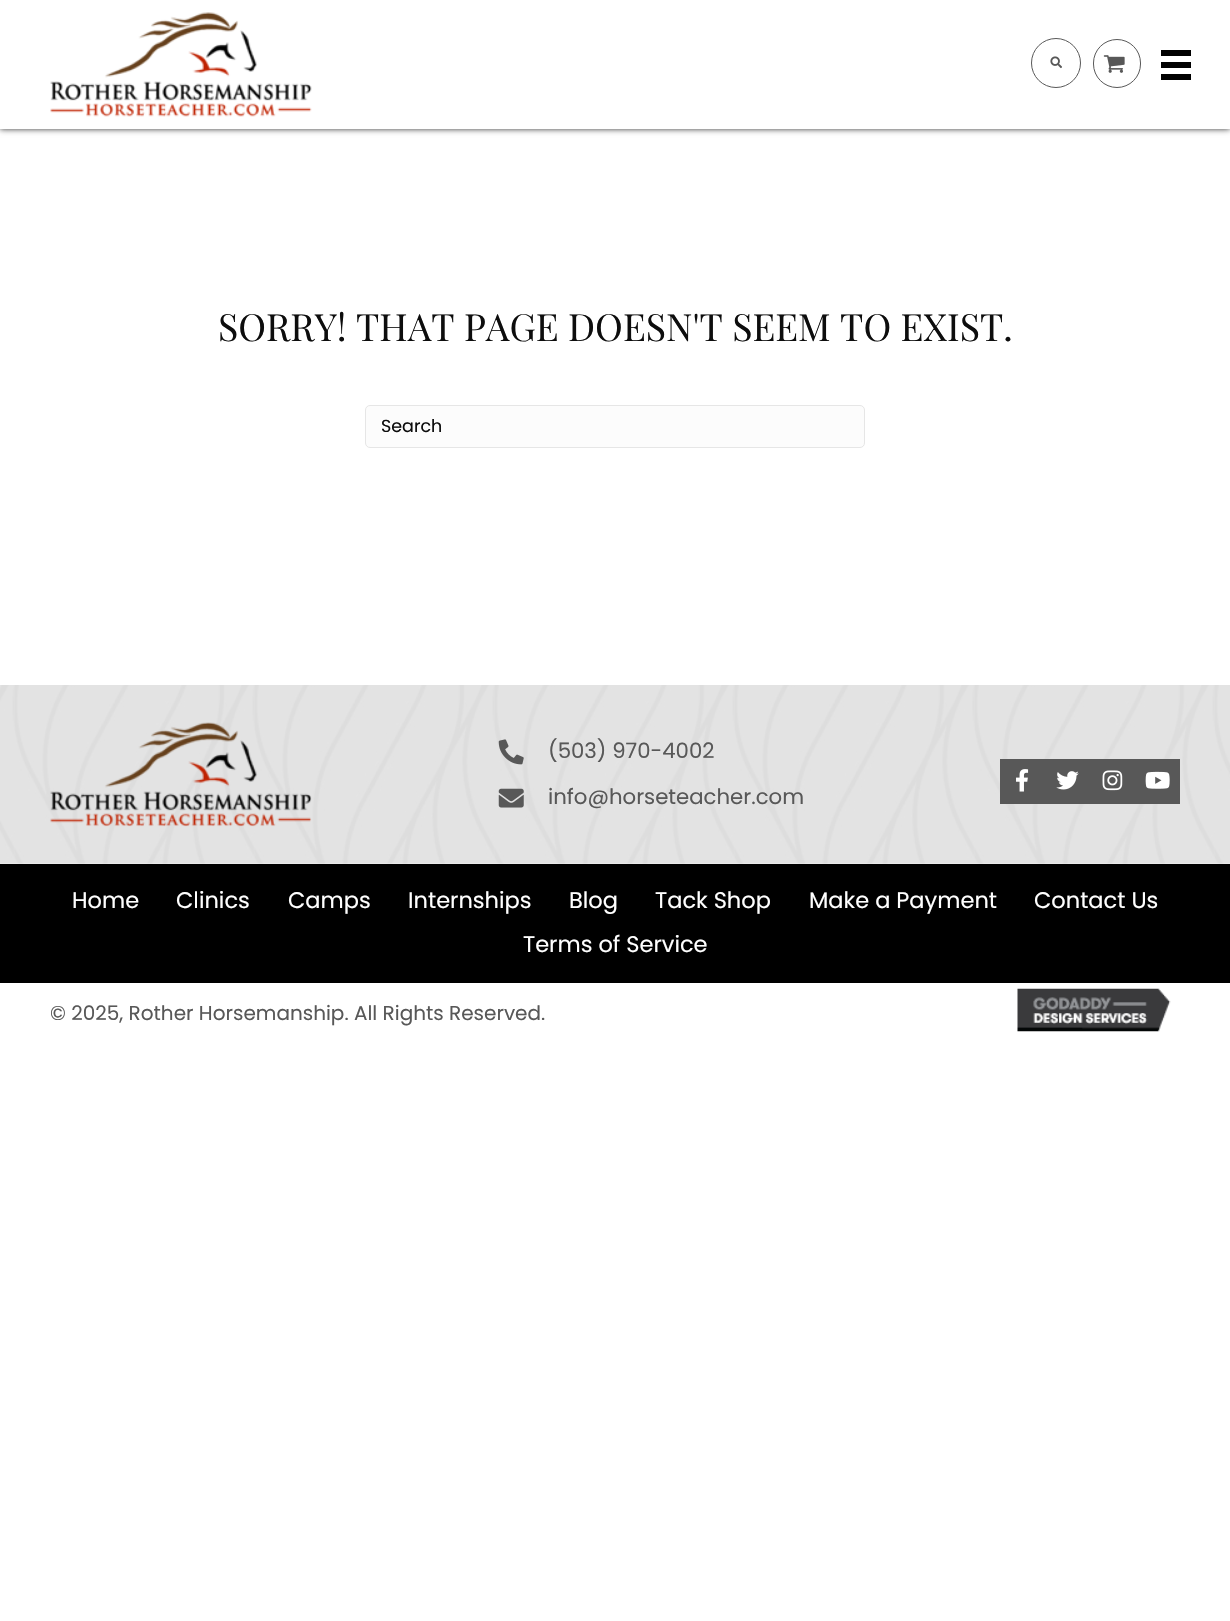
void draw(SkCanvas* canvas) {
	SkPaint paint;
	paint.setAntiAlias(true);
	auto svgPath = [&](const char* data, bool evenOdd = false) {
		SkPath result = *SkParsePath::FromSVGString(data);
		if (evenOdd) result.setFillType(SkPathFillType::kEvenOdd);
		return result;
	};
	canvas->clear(0xffffffff);
	canvas->save();
	canvas->clipPath(svgPath("M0 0H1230V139H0ZM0 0H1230V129H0Z", true), true);
	paint.setColor(0xff333333);
	paint.setMaskFilter(SkMaskFilter::MakeBlur(kNormal_SkBlurStyle, 3));
	canvas->drawRect(SkRect::MakeXYWH(0, 0, 1230, 129), paint);
	paint.setMaskFilter(nullptr);
	canvas->restore();
	paint.setColor(0xe6ffffff);
	canvas->drawRect(SkRect::MakeXYWH(0, 128, 1230, 1), paint);
	canvas->drawImageRect(SkImages::DeferredFromEncodedData(SkData::MakeFromFileName("img1.png")), SkRect::MakeXYWH(50, 12, 262, 105), SkSamplingOptions());
	paint.setStroke(true);
	paint.setStrokeWidth(1);
	paint.setColor(0xff585858);
	canvas->drawCircle(1056, 63, 24.5, paint);
	canvas->drawImageRect(SkImages::DeferredFromEncodedData(SkData::MakeFromFileName("img2.png")), SkRect::MakeXYWH(1050, 56, 12, 13), SkSamplingOptions());
	canvas->drawRoundRect(SkRect::MakeXYWH(1093.5, 39.5, 47, 48), 23.5, 23.5, paint);
	canvas->drawImageRect(SkImages::DeferredFromEncodedData(SkData::MakeFromFileName("img3.png")), SkRect::MakeXYWH(1103, 55, 22, 18), SkSamplingOptions());
	paint.setStroke(false);
	paint.setColor(0xff000000);
	canvas->drawRect(SkRect::MakeXYWH(1161, 50, 30, 6), paint);
	canvas->drawRect(SkRect::MakeXYWH(1161, 62, 30, 6), paint);
	canvas->drawRect(SkRect::MakeXYWH(1161, 74, 30, 6), paint);
	SkFont f1(fontMgr->matchFamilyStyle("Playfair Display", SkFontStyle::Normal()), 37.5);
	f1.setSubpixel(true);
	paint.setColor(0xff0d0d0d);
	canvas->drawString("SORRY! THAT PAGE DOESN'T SEEM TO EXIST.", 218, 341, f1, paint);
	paint.setColor(0xfffcfcfc);
	canvas->drawRoundRect(SkRect::MakeXYWH(365.5, 405.5, 499, 42), 4.5, 4.5, paint);
	paint.setStroke(true);
	paint.setColor(0xffe6e6e6);
	canvas->drawRoundRect(SkRect::MakeXYWH(365.5, 405.5, 499, 42), 4.5, 4.5, paint);
	SkFont f2(fontMgr->matchFamilyStyle("Poppins", SkFontStyle::Normal()), 17.5);
	f2.setSubpixel(true);
	paint.setStroke(false);
	paint.setColor(0xff0d0d0d);
	canvas->drawString("Search", 381, 432, f2, paint);
	canvas->drawImageRect(SkImages::DeferredFromEncodedData(SkData::MakeFromFileName("img4.png")), SkRect::MakeXYWH(0, 685, 1230, 179), SkSamplingOptions());
	canvas->drawImageRect(SkImages::DeferredFromEncodedData(SkData::MakeFromFileName("img5.png")), SkRect::MakeXYWH(50, 722, 262, 105), SkSamplingOptions());
	canvas->drawImageRect(SkImages::DeferredFromEncodedData(SkData::MakeFromFileName("img6.png")), SkRect::MakeXYWH(498, 739, 26, 26), SkSamplingOptions());
	SkFont f3(fontMgr->matchFamilyStyle("Poppins", SkFontStyle::Normal()), 21.25);
	f3.setSubpixel(true);
	paint.setColor(0xff585858);
	canvas->drawString("(503) 970-4002", 548, 758, f3, paint);
	canvas->drawImageRect(SkImages::DeferredFromEncodedData(SkData::MakeFromFileName("img7.png")), SkRect::MakeXYWH(498, 788, 26, 20), SkSamplingOptions());
	canvas->drawString("info@horseteacher.com", 548, 804, f3, paint);
	canvas->drawRect(SkRect::MakeXYWH(1000, 759, 180, 45), paint);
	canvas->drawImageRect(SkImages::DeferredFromEncodedData(SkData::MakeFromFileName("img8.png")), SkRect::MakeXYWH(1016, 769, 13, 23), SkSamplingOptions());
	canvas->drawImageRect(SkImages::DeferredFromEncodedData(SkData::MakeFromFileName("img9.png")), SkRect::MakeXYWH(1056, 771, 23, 19), SkSamplingOptions());
	canvas->drawImageRect(SkImages::DeferredFromEncodedData(SkData::MakeFromFileName("img10.png")), SkRect::MakeXYWH(1102, 770, 21, 21), SkSamplingOptions());
	canvas->drawImageRect(SkImages::DeferredFromEncodedData(SkData::MakeFromFileName("img11.png")), SkRect::MakeXYWH(1145, 771, 25, 18), SkSamplingOptions());
	paint.setColor(0xff000000);
	canvas->drawRect(SkRect::MakeXYWH(0, 864, 1230, 119), paint);
	SkFont f4(fontMgr->matchFamilyStyle("Poppins", SkFontStyle::Normal()), 22.5);
	f4.setSubpixel(true);
	paint.setColor(0xffffffff);
	canvas->drawString("Home", 72, 908, f4, paint);
	canvas->drawString("Clinics", 176, 908, f4, paint);
	canvas->drawString("Camps", 288, 908, f4, paint);
	canvas->drawString("Internships", 408, 908, f4, paint);
	canvas->drawString("Blog", 569, 908, f4, paint);
	canvas->drawString("Tack Shop", 655, 908, f4, paint);
	canvas->drawString("Make a Payment", 809, 908, f4, paint);
	canvas->drawString("Contact Us", 1034, 908, f4, paint);
	canvas->drawString("Terms of Service", 523, 952, f4, paint);
	SkFont f5(fontMgr->matchFamilyStyle("Poppins", SkFontStyle::Normal()), 20);
	f5.setSubpixel(true);
	paint.setColor(0xff585858);
	canvas->drawString("© 2025, Rother Horsemanship. All Rights Reserved.", 50, 1020, f5, paint);
	canvas->drawImageRect(SkImages::DeferredFromEncodedData(SkData::MakeFromFileName("img12.png")), SkRect::MakeXYWH(1017, 988, 154, 44), SkSamplingOptions());
}
